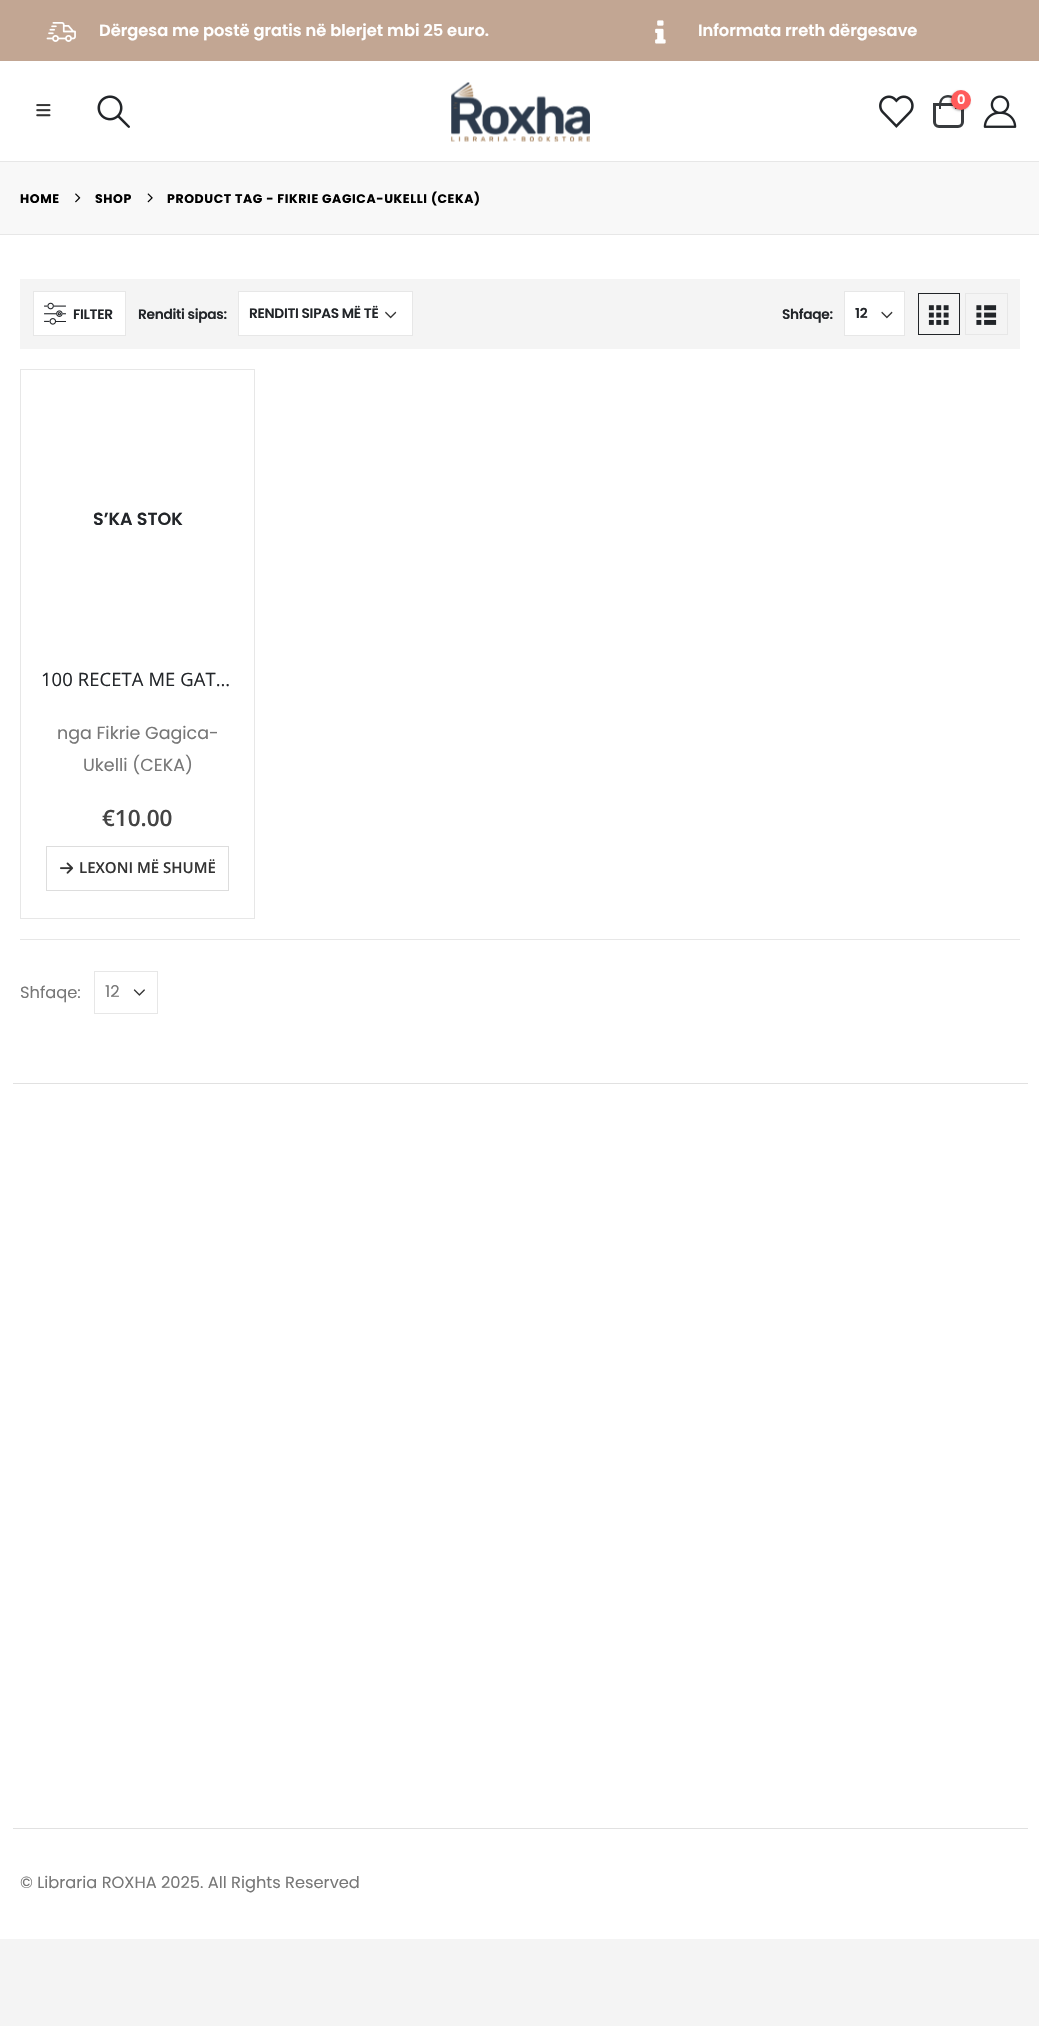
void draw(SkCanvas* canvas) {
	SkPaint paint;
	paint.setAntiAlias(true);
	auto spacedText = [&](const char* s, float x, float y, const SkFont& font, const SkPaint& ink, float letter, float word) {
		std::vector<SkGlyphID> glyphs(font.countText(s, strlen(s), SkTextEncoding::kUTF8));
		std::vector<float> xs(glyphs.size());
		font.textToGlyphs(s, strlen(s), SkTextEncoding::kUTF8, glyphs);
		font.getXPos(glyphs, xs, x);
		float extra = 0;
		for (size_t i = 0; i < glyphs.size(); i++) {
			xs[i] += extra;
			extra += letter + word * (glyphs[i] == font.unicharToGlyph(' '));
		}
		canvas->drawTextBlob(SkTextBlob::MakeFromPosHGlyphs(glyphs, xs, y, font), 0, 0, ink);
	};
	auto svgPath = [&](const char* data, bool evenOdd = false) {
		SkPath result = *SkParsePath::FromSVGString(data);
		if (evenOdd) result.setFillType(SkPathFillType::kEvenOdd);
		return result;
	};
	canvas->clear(0xfff4f4f4);
	paint.setColor(0xffffffff);
	canvas->drawRect(SkRect::MakeXYWH(0, 61, 1039, 100), paint);
	paint.setColor(0xffc2a693);
	canvas->drawRect(SkRect::MakeXYWH(0, 0, 1039, 61), paint);
	canvas->drawImageRect(SkImages::DeferredFromEncodedData(SkData::MakeFromFileName("img1.png")), SkRect::MakeXYWH(46, 22, 30, 20), SkSamplingOptions());
	SkFont f1(fontMgr->matchFamilyStyle("Poppins", SkFontStyle(600, SkFontStyle::kNormal_Width, SkFontStyle::kUpright_Slant)), 16.25);
	f1.setSubpixel(true);
	paint.setColor(0xffffffff);
	canvas->drawString("Dërgesa me postë gratis në blerjet mbi 25 euro.", 99, 36, f1, paint);
	canvas->drawImageRect(SkImages::DeferredFromEncodedData(SkData::MakeFromFileName("img2.png")), SkRect::MakeXYWH(655, 20, 11, 24), SkSamplingOptions());
	canvas->drawString("Informata rreth dërgesave", 698, 36, f1, paint);
	canvas->drawImageRect(SkImages::DeferredFromEncodedData(SkData::MakeFromFileName("img3.png")), SkRect::MakeXYWH(36, 104, 15, 13), SkSamplingOptions());
	canvas->drawImageRect(SkImages::DeferredFromEncodedData(SkData::MakeFromFileName("img4.png")), SkRect::MakeXYWH(97, 95, 33, 33), SkSamplingOptions());
	canvas->drawImageRect(SkImages::DeferredFromEncodedData(SkData::MakeFromFileName("img5.png")), SkRect::MakeXYWH(451, 82, 139, 60), SkSamplingOptions());
	canvas->drawImageRect(SkImages::DeferredFromEncodedData(SkData::MakeFromFileName("img6.png")), SkRect::MakeXYWH(879, 95, 35, 33), SkSamplingOptions());
	paint.setStroke(true);
	paint.setStrokeWidth(3);
	paint.setColor(0xff383b3e);
	canvas->drawPath(svgPath("M934.5 104.5H962.5V122C962.5 124.5 960.5 126.5 958 126.5H939C936.5 126.5 934.5 124.5 934.5 122Z"), paint);
	paint.setStroke(false);
	canvas->drawPath(svgPath("M948 95C953.5 95 957.5 99 957.5 104.5V109H939V104.5C939 99 943 95 948 95ZM948 97.5C955 97.5 955 104 955 109H941C941 104 941 97.5 948 97.5Z", true), paint);
	paint.setColor(0x4d000000);
	paint.setMaskFilter(SkMaskFilter::MakeBlur(kNormal_SkBlurStyle, 1));
	canvas->drawRoundRect(SkRect::MakeXYWH(950, 91, 20, 20), 10, 10, paint);
	paint.setMaskFilter(nullptr);
	paint.setColor(0xffff5b5b);
	canvas->drawCircle(961, 100, 10, paint);
	SkFont f2(fontMgr->matchFamilyStyle("Poppins", SkFontStyle(600, SkFontStyle::kNormal_Width, SkFontStyle::kUpright_Slant)), 13);
	f2.setSubpixel(true);
	paint.setColor(0xffffffff);
	canvas->drawString("0", 957, 104, f2, paint);
	canvas->drawImageRect(SkImages::DeferredFromEncodedData(SkData::MakeFromFileName("img7.png")), SkRect::MakeXYWH(983, 95, 34, 33), SkSamplingOptions());
	paint.setColor(0xfff8f8f8);
	canvas->drawRect(SkRect::MakeXYWH(0, 162, 1039, 72), paint);
	paint.setColor(0xffe7e7e7);
	canvas->drawRect(SkRect::MakeXYWH(0, 161, 1039, 1), paint);
	canvas->drawRect(SkRect::MakeXYWH(0, 234, 1039, 1), paint);
	SkFont f3(fontMgr->matchFamilyStyle("Poppins", SkFontStyle::Bold()), 12.5);
	f3.setSubpixel(true);
	paint.setColor(0xff000000);
	spacedText("HOME", 20, 203, f3, paint, 0.6, 0);
	canvas->drawImageRect(SkImages::DeferredFromEncodedData(SkData::MakeFromFileName("img8.png")), SkRect::MakeXYWH(75, 193, 6, 10), SkSamplingOptions());
	spacedText("SHOP", 95, 203, f3, paint, 0.6, 0);
	canvas->drawImageRect(SkImages::DeferredFromEncodedData(SkData::MakeFromFileName("img9.png")), SkRect::MakeXYWH(147, 193, 6, 10), SkSamplingOptions());
	spacedText("PRODUCT TAG - FIKRIE GAGICA-UKELLI (CEKA)", 167, 203, f3, paint, 0.6, 0);
	paint.setColor(0xffffffff);
	canvas->drawRect(SkRect::MakeXYWH(0, 235, 1039, 1704), paint);
	paint.setColor(0xfff4f4f4);
	canvas->drawRect(SkRect::MakeXYWH(20, 279, 1000, 70), paint);
	paint.setColor(0xffffffff);
	canvas->drawRect(SkRect::MakeXYWH(33.5, 291.5, 92, 44), paint);
	paint.setStroke(true);
	paint.setStrokeWidth(1);
	paint.setColor(0xffe7e7e7);
	canvas->drawRect(SkRect::MakeXYWH(33.5, 291.5, 92, 44), paint);
	canvas->drawImageRect(SkImages::DeferredFromEncodedData(SkData::MakeFromFileName("img10.png")), SkRect::MakeXYWH(44, 302, 22, 23), SkSamplingOptions());
	SkFont f4(fontMgr->matchFamilyStyle("Poppins", SkFontStyle(600, SkFontStyle::kNormal_Width, SkFontStyle::kUpright_Slant)), 13.75);
	f4.setSubpixel(true);
	paint.setStroke(false);
	paint.setColor(0xff222529);
	spacedText("FILTER", 73, 319, f4, paint, -0.3, 0);
	spacedText("Renditi sipas:", 138, 319, f4, paint, -0.3, 0);
	paint.setColor(0xffffffff);
	canvas->drawRect(SkRect::MakeXYWH(239, 292, 173, 43), paint);
	canvas->drawImageRect(SkImages::DeferredFromEncodedData(SkData::MakeFromFileName("img11.png")), SkRect::MakeXYWH(385, 311, 12, 8), SkSamplingOptions());
	paint.setStroke(true);
	paint.setColor(0xffe7e7e7);
	canvas->drawRect(SkRect::MakeXYWH(238.5, 291.5, 174, 44), paint);
	paint.setStroke(false);
	paint.setColor(0xff222529);
	spacedText("RENDITI SIPAS MË TË", 249, 318, f4, paint, -0.3, 0);
	spacedText("Shfaqe:", 782, 319, f4, paint, -0.3, 0);
	paint.setColor(0xffffffff);
	canvas->drawRect(SkRect::MakeXYWH(845, 292, 59, 43), paint);
	canvas->drawImageRect(SkImages::DeferredFromEncodedData(SkData::MakeFromFileName("img12.png")), SkRect::MakeXYWH(881, 311, 12, 8), SkSamplingOptions());
	paint.setStroke(true);
	paint.setColor(0xffe7e7e7);
	canvas->drawRect(SkRect::MakeXYWH(844.5, 291.5, 60, 44), paint);
	paint.setStroke(false);
	paint.setColor(0xff222529);
	spacedText("12", 855, 318, f4, paint, -0.3, 0);
	paint.setStroke(true);
	canvas->drawRect(SkRect::MakeXYWH(918.5, 293.5, 41, 41), paint);
	canvas->drawImageRect(SkImages::DeferredFromEncodedData(SkData::MakeFromFileName("img13.png")), SkRect::MakeXYWH(928, 305, 21, 20), SkSamplingOptions());
	paint.setColor(0xffe7e7e7);
	canvas->drawRect(SkRect::MakeXYWH(965.5, 293.5, 42, 41), paint);
	canvas->drawImageRect(SkImages::DeferredFromEncodedData(SkData::MakeFromFileName("img14.png")), SkRect::MakeXYWH(976, 305, 21, 20), SkSamplingOptions());
	canvas->drawRect(SkRect::MakeXYWH(20.5, 369.5, 234, 549), paint);
	SkFont f5(fontMgr->matchFamilyStyle("Poppins", SkFontStyle(600, SkFontStyle::kNormal_Width, SkFontStyle::kUpright_Slant)), 17.5);
	f5.setSubpixel(true);
	paint.setStroke(false);
	paint.setColor(0xff222529);
	canvas->drawString("S’KA STOK", 93, 525, f5, paint);
	SkFont f6(fontMgr->matchFamilyStyle("Open Sans", SkFontStyle::Normal()), 18.4);
	f6.setSubpixel(true);
	spacedText("100 RECETA ME GAT…", 41, 686, f6, paint, 0.1, 0);
	SkFont f7(fontMgr->matchFamilyStyle("Poppins", SkFontStyle::Normal()), 17.5);
	f7.setSubpixel(true);
	paint.setColor(0xff777777);
	canvas->drawString("nga Fikrie Gagica-", 57, 739, f7, paint);
	canvas->drawString("Ukelli (CEKA)", 83, 771, f7, paint);
	SkFont f8(fontMgr->matchFamilyStyle("Open Sans", SkFontStyle(600, SkFontStyle::kNormal_Width, SkFontStyle::kUpright_Slant)), 22.5);
	f8.setSubpixel(true);
	paint.setColor(0xff444444);
	canvas->drawString("€10.00", 102, 826, f8, paint);
	paint.setStroke(true);
	paint.setColor(0xffdddddd);
	canvas->drawRect(SkRect::MakeXYWH(46.5, 846.5, 182, 44), paint);
	canvas->drawImageRect(SkImages::DeferredFromEncodedData(SkData::MakeFromFileName("img15.png")), SkRect::MakeXYWH(60, 862, 14, 12), SkSamplingOptions());
	SkFont f9(fontMgr->matchFamilyStyle("Open Sans", SkFontStyle(600, SkFontStyle::kNormal_Width, SkFontStyle::kUpright_Slant)), 15);
	f9.setSubpixel(true);
	paint.setStroke(false);
	paint.setColor(0xff333333);
	canvas->drawString("LEXONI MË SHUMË", 79, 873, f9, paint);
	paint.setColor(0xffe7e7e7);
	canvas->drawRect(SkRect::MakeXYWH(20, 939, 1000, 1), paint);
	SkFont f10(fontMgr->matchFamilyStyle("Poppins", SkFontStyle::Normal()), 16.25);
	f10.setSubpixel(true);
	paint.setColor(0xff777777);
	canvas->drawString("Shfaqe:", 20, 998, f10, paint);
	canvas->drawImageRect(SkImages::DeferredFromEncodedData(SkData::MakeFromFileName("img16.png")), SkRect::MakeXYWH(133, 989, 12, 7), SkSamplingOptions());
	paint.setStroke(true);
	paint.setColor(0xffe7e7e7);
	canvas->drawRect(SkRect::MakeXYWH(94.5, 971.5, 63, 42), paint);
	paint.setStroke(false);
	paint.setColor(0xff777777);
	canvas->drawString("12", 105, 997, f10, paint);
	paint.setColor(0xffe1e1e1);
	canvas->drawRect(SkRect::MakeXYWH(13, 1083, 1015, 1), paint);
	canvas->drawRect(SkRect::MakeXYWH(13, 1828, 1015, 1), paint);
	paint.setColor(0xff777777);
	canvas->drawString("© Libraria ROXHA 2025. All Rights Reserved", 20, 1888, f10, paint);
}
